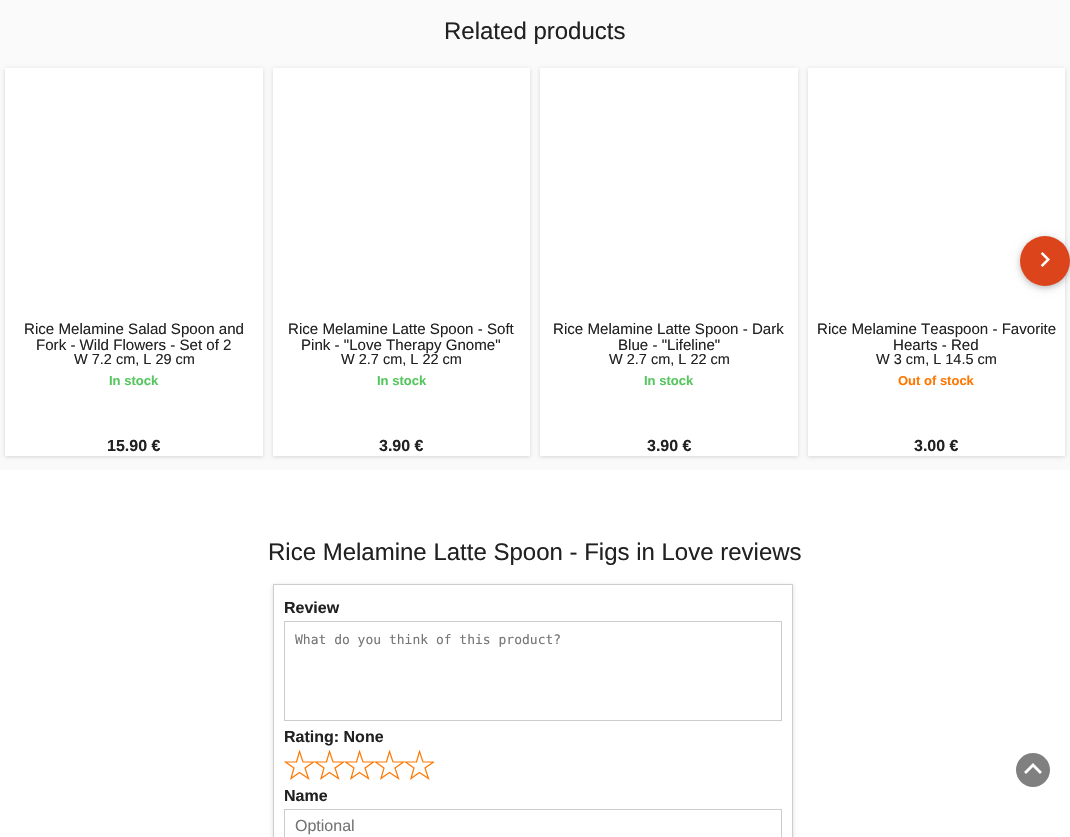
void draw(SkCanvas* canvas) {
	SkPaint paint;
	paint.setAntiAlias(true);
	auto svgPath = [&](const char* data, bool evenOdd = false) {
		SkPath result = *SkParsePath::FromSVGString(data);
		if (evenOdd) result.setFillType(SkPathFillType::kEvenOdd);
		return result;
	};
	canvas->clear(0xffffffff);
	paint.setColor(0xfffafafa);
	canvas->drawRect(SkRect::MakeXYWH(0, 0, 1070, 470), paint);
	SkFont f1(fontMgr->matchFamilyStyle("Liberation Sans", SkFontStyle::Normal()), 24);
	f1.setSubpixel(true);
	paint.setColor(0xff212121);
	canvas->drawString("Related products", 444, 39, f1, paint);
	paint.setColor(0x24000000);
	paint.setMaskFilter(SkMaskFilter::MakeBlur(kNormal_SkBlurStyle, 2));
	canvas->drawRect(SkRect::MakeXYWH(808, 69, 257, 388), paint);
	paint.setMaskFilter(nullptr);
	paint.setColor(0xffffffff);
	canvas->drawRect(SkRect::MakeXYWH(808, 68, 257, 388), paint);
	paint.setColor(0x1f000000);
	paint.setMaskFilter(SkMaskFilter::MakeBlur(kNormal_SkBlurStyle, 5));
	canvas->drawRoundRect(SkRect::MakeXYWH(1020, 238, 50, 50), 25, 25, paint);
	paint.setMaskFilter(nullptr);
	paint.setColor(0x29000000);
	paint.setMaskFilter(SkMaskFilter::MakeBlur(kNormal_SkBlurStyle, 2.5));
	canvas->drawRoundRect(SkRect::MakeXYWH(1020, 238, 50, 50), 25, 25, paint);
	paint.setMaskFilter(nullptr);
	paint.setColor(0xffdc451c);
	canvas->drawCircle(1045, 261, 25, paint);
	canvas->drawImageRect(SkImages::DeferredFromEncodedData(SkData::MakeFromFileName("img1.png")), SkRect::MakeXYWH(1040, 252, 10, 15), SkSamplingOptions());
	paint.setColor(0x24000000);
	paint.setMaskFilter(SkMaskFilter::MakeBlur(kNormal_SkBlurStyle, 2));
	canvas->drawRect(SkRect::MakeXYWH(5, 69, 258, 388), paint);
	paint.setMaskFilter(nullptr);
	paint.setColor(0xffffffff);
	canvas->drawRect(SkRect::MakeXYWH(5, 68, 258, 388), paint);
	SkFont f2(fontMgr->matchFamilyStyle("Liberation Sans", SkFontStyle::Normal()), 15.1);
	f2.setSubpixel(true);
	paint.setColor(0xff212121);
	canvas->drawString("Rice Melamine Salad Spoon and", 24, 334, f2, paint);
	canvas->drawString("Fork - Wild Flowers - Set of 2", 36, 350, f2, paint);
	SkFont f3(fontMgr->matchFamilyStyle("Liberation Sans", SkFontStyle::Normal()), 14.5);
	f3.setSubpixel(true);
	canvas->drawString("W 7.2 cm, L 29 cm", 74, 364, f3, paint);
	SkFont f4(fontMgr->matchFamilyStyle("Liberation Sans", SkFontStyle::Bold()), 13);
	f4.setSubpixel(true);
	paint.setColor(0xff55c65e);
	canvas->drawString("In stock", 109, 385, f4, paint);
	SkFont f5(fontMgr->matchFamilyStyle("Liberation Sans", SkFontStyle::Bold()), 16);
	f5.setSubpixel(true);
	paint.setColor(0xff212121);
	canvas->drawString("15.90 €", 107, 451, f5, paint);
	paint.setColor(0x24000000);
	paint.setMaskFilter(SkMaskFilter::MakeBlur(kNormal_SkBlurStyle, 2));
	canvas->drawRect(SkRect::MakeXYWH(273, 69, 257, 388), paint);
	paint.setMaskFilter(nullptr);
	paint.setColor(0xffffffff);
	canvas->drawRect(SkRect::MakeXYWH(273, 68, 257, 388), paint);
	paint.setColor(0xff212121);
	canvas->drawString("Rice Melamine Latte Spoon - Soft", 288, 334, f2, paint);
	canvas->drawString("Pink - \"Love Therapy Gnome\"", 301, 350, f2, paint);
	canvas->drawString("W 2.7 cm, L 22 cm", 341, 364, f3, paint);
	paint.setColor(0xff55c65e);
	canvas->drawString("In stock", 377, 385, f4, paint);
	paint.setColor(0xff212121);
	canvas->drawString("3.90 €", 379, 451, f5, paint);
	paint.setColor(0x24000000);
	paint.setMaskFilter(SkMaskFilter::MakeBlur(kNormal_SkBlurStyle, 2));
	canvas->drawRect(SkRect::MakeXYWH(540, 69, 258, 388), paint);
	paint.setMaskFilter(nullptr);
	paint.setColor(0xffffffff);
	canvas->drawRect(SkRect::MakeXYWH(540, 68, 258, 388), paint);
	paint.setColor(0xff212121);
	canvas->drawString("Rice Melamine Latte Spoon - Dark", 553, 334, f2, paint);
	canvas->drawString("Blue - \"Lifeline\"", 618, 350, f2, paint);
	canvas->drawString("W 2.7 cm, L 22 cm", 609, 364, f3, paint);
	paint.setColor(0xff55c65e);
	canvas->drawString("In stock", 644, 385, f4, paint);
	paint.setColor(0xff212121);
	canvas->drawString("3.90 €", 647, 451, f5, paint);
	canvas->drawString("Rice Melamine Teaspoon - Favorite", 817, 334, f2, paint);
	canvas->drawString("Hearts - Red", 893, 350, f2, paint);
	canvas->drawString("W 3 cm, L 14.5 cm", 876, 364, f3, paint);
	paint.setColor(0xffff7700);
	canvas->drawString("Out of stock", 898, 385, f4, paint);
	paint.setColor(0xff212121);
	canvas->drawString("3.00 €", 914, 451, f5, paint);
	canvas->drawString("Rice Melamine Latte Spoon - Figs in Love reviews", 268, 560, f1, paint);
	canvas->save();
	canvas->clipPath(svgPath("M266 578H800V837H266ZM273 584H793V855H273Z", true), true);
	paint.setColor(0x24000000);
	paint.setMaskFilter(SkMaskFilter::MakeBlur(kNormal_SkBlurStyle, 2));
	canvas->drawRect(SkRect::MakeXYWH(273, 585, 520, 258), paint);
	paint.setMaskFilter(nullptr);
	canvas->restore();
	paint.setStroke(true);
	paint.setStrokeWidth(1);
	paint.setColor(0xffcecece);
	canvas->drawRect(SkRect::MakeXYWH(273.5, 584.5, 519, 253), paint);
	paint.setStroke(false);
	paint.setColor(0xff212121);
	canvas->drawString("Review", 284, 613, f5, paint);
	paint.setStroke(true);
	paint.setColor(0xffcccccc);
	canvas->drawRect(SkRect::MakeXYWH(284.5, 621.5, 497, 99), paint);
	SkFont f6(fontMgr->matchFamilyStyle("DejaVu Sans Mono", SkFontStyle::Normal()), 13);
	f6.setSubpixel(true);
	paint.setStroke(false);
	paint.setColor(0xff757575);
	canvas->drawString("What do you think of this product?", 295, 644, f6, paint);
	paint.setColor(0xff212121);
	canvas->drawString("Rating: None", 284, 742, f5, paint);
	canvas->save();
	canvas->clipRect(SkRect::MakeXYWH(284, 750, 30, 30));
	paint.setStroke(true);
	paint.setStrokeWidth(1.2);
	paint.setColor(0xffff7700);
	canvas->drawPath(svgPath("M299.5 751.5L303 762H313.5L305 768L308.5 778.5L299.5 772.5L291 778.5L294 768L285.5 762H296.5Z"), paint);
	canvas->restore();
	canvas->save();
	canvas->clipRect(SkRect::MakeXYWH(314, 750, 30, 30));
	canvas->drawPath(svgPath("M329.5 751.5L333 762H343.5L335 768L338.5 778.5L329.5 772.5L321 778.5L324 768L315.5 762H326.5Z"), paint);
	canvas->restore();
	canvas->save();
	canvas->clipRect(SkRect::MakeXYWH(344, 750, 30, 30));
	canvas->drawPath(svgPath("M359.5 751.5L363 762H373.5L365 768L368.5 778.5L359.5 772.5L351 778.5L354 768L345.5 762H356.5Z"), paint);
	canvas->restore();
	canvas->save();
	canvas->clipRect(SkRect::MakeXYWH(374, 750, 30, 30));
	canvas->drawPath(svgPath("M389.5 751.5L393 762H403.5L395 768L398.5 778.5L389.5 772.5L381 778.5L384 768L375.5 762H386.5Z"), paint);
	canvas->restore();
	canvas->save();
	canvas->clipRect(SkRect::MakeXYWH(404, 750, 30, 30));
	canvas->drawPath(svgPath("M419.5 751.5L423 762H433.5L425 768L428.5 778.5L419.5 772.5L411 778.5L414 768L405.5 762H416.5Z"), paint);
	canvas->restore();
	paint.setStroke(false);
	paint.setColor(0xff212121);
	canvas->drawString("Name", 284, 801, f5, paint);
	paint.setStroke(true);
	paint.setStrokeWidth(1);
	paint.setColor(0xffcccccc);
	canvas->drawRect(SkRect::MakeXYWH(284.5, 809.5, 497, 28), paint);
	SkFont f7(fontMgr->matchFamilyStyle("Liberation Sans", SkFontStyle::Normal()), 16);
	f7.setSubpixel(true);
	paint.setStroke(false);
	paint.setColor(0xff757575);
	canvas->drawString("Optional", 295, 831, f7, paint);
	paint.setColor(0xff808080);
	canvas->drawCircle(1033, 770, 17, paint);
	paint.setColor(0xffffffff);
	canvas->drawPath(svgPath("M1026 774L1024 772L1033 763L1042 772L1040 774L1033 767Z"), paint);
}
